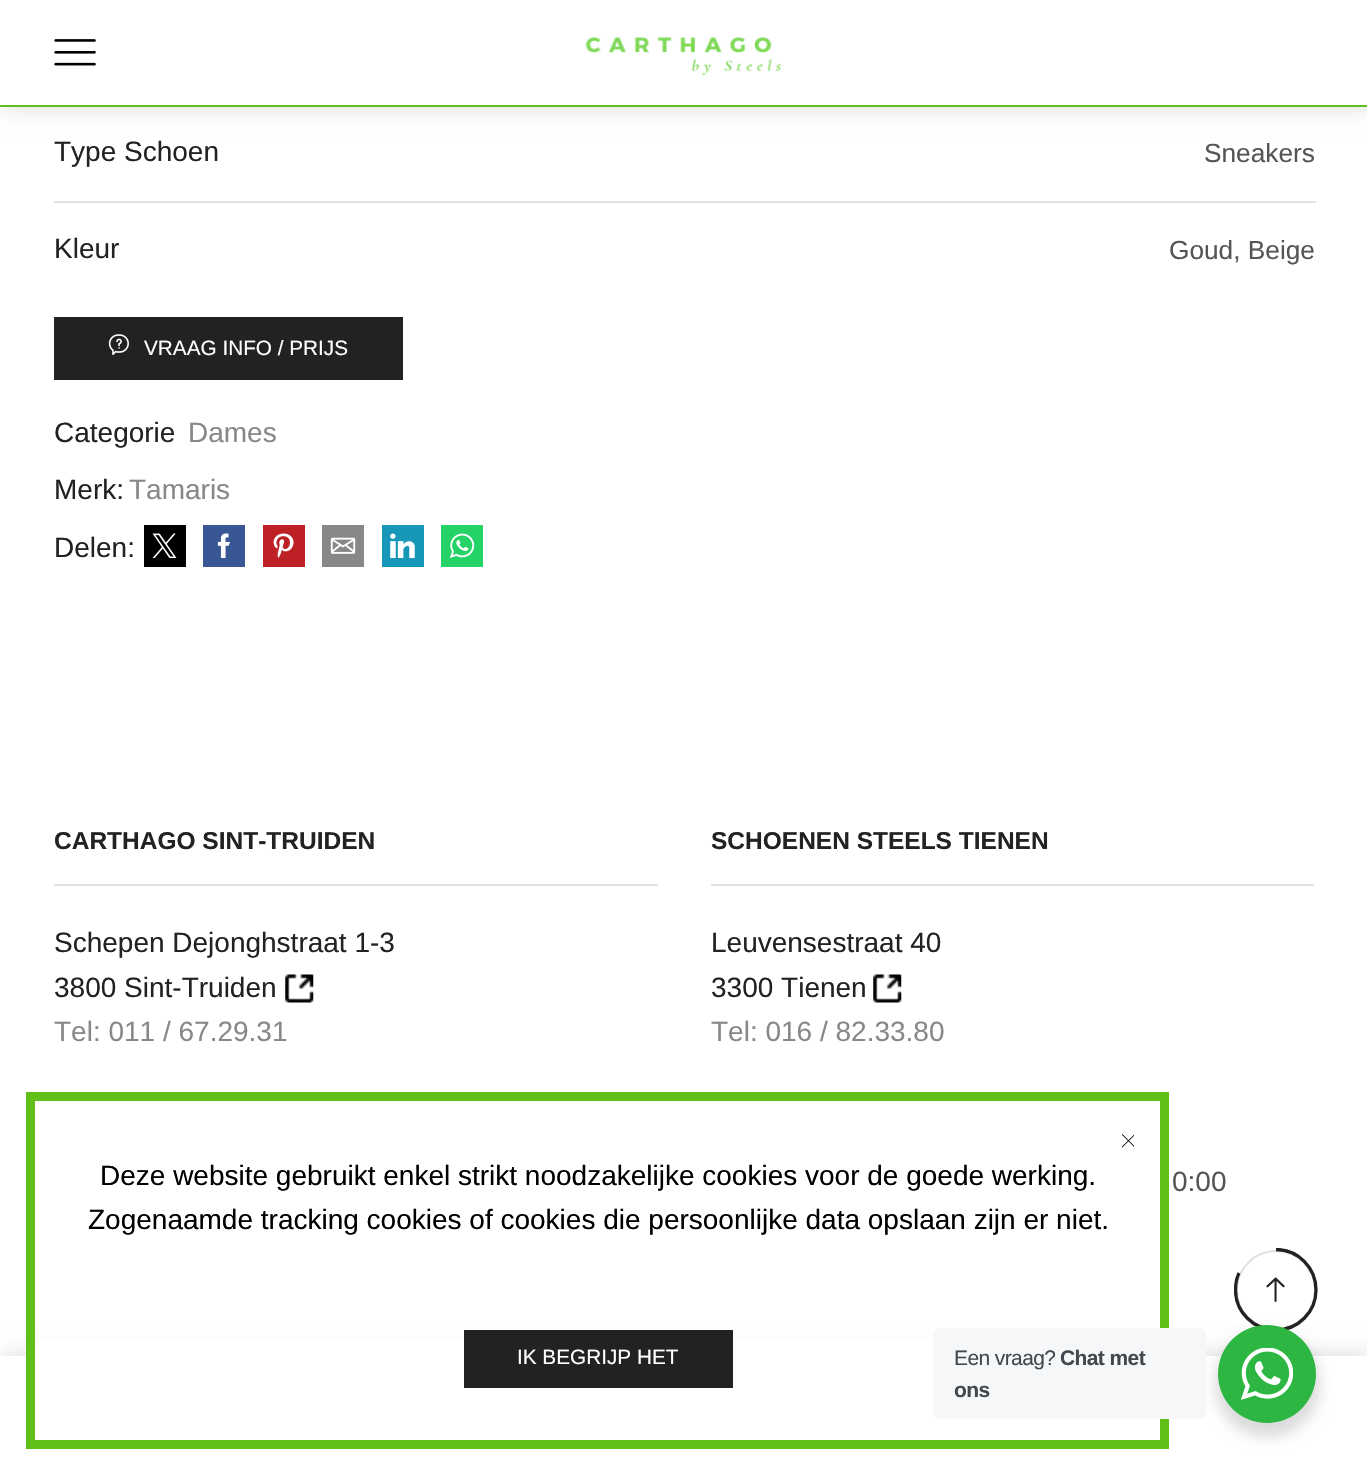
void draw(SkCanvas* canvas) {
	SkPaint paint;
	paint.setAntiAlias(true);
	auto spacedText = [&](const char* s, float x, float y, const SkFont& font, const SkPaint& ink, float letter, float word) {
		std::vector<SkGlyphID> glyphs(font.countText(s, strlen(s), SkTextEncoding::kUTF8));
		std::vector<float> xs(glyphs.size());
		font.textToGlyphs(s, strlen(s), SkTextEncoding::kUTF8, glyphs);
		font.getXPos(glyphs, xs, x);
		float extra = 0;
		for (size_t i = 0; i < glyphs.size(); i++) {
			xs[i] += extra;
			extra += letter + word * (glyphs[i] == font.unicharToGlyph(' '));
		}
		canvas->drawTextBlob(SkTextBlob::MakeFromPosHGlyphs(glyphs, xs, y, font), 0, 0, ink);
	};
	auto svgPath = [&](const char* data, bool evenOdd = false) {
		SkPath result = *SkParsePath::FromSVGString(data);
		if (evenOdd) result.setFillType(SkPathFillType::kEvenOdd);
		return result;
	};
	canvas->clear(0xffffffff);
	paint.setColor(0x26000000);
	paint.setMaskFilter(SkMaskFilter::MakeBlur(kNormal_SkBlurStyle, 10.5));
	canvas->drawRect(SkRect::MakeXYWH(4, 0, 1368, 107), paint);
	paint.setMaskFilter(nullptr);
	paint.setColor(0xffffffff);
	canvas->drawRect(SkRect::MakeXYWH(0, 0, 1367, 105), paint);
	paint.setColor(0xff61bf1a);
	canvas->drawRect(SkRect::MakeXYWH(0, 105, 1367, 2), paint);
	canvas->drawImageRect(SkImages::DeferredFromEncodedData(SkData::MakeFromFileName("img1.png")), SkRect::MakeXYWH(54, 39, 42, 27), SkSamplingOptions());
	canvas->drawImageRect(SkImages::DeferredFromEncodedData(SkData::MakeFromFileName("img2.png")), SkRect::MakeXYWH(585, 36, 196, 40), SkSamplingOptions());
	paint.setColor(0xffe1e1e1);
	canvas->drawRect(SkRect::MakeXYWH(54, 201, 1262, 2), paint);
	SkFont f1(fontMgr->matchFamilyStyle("Liberation Sans", SkFontStyle::Normal()), 28);
	f1.setSubpixel(true);
	paint.setColor(0xff222222);
	canvas->drawString("Type Schoen", 54, 161, f1, paint);
	SkFont f2(fontMgr->matchFamilyStyle("Liberation Sans", SkFontStyle::Normal()), 26.25);
	f2.setSubpixel(true);
	paint.setColor(0xff555555);
	canvas->drawString("Sneakers", 1204, 162, f2, paint);
	paint.setColor(0xff222222);
	canvas->drawString("Kleur", 54, 258, f1, paint);
	paint.setColor(0xff555555);
	canvas->drawString("Goud, Beige", 1169, 259, f2, paint);
	paint.setColor(0xff222222);
	canvas->drawRect(SkRect::MakeXYWH(54, 317, 349, 63), paint);
	canvas->drawImageRect(SkImages::DeferredFromEncodedData(SkData::MakeFromFileName("img3.png")), SkRect::MakeXYWH(108, 334, 21, 21), SkSamplingOptions());
	SkFont f3(fontMgr->matchFamilyStyle("Liberation Sans", SkFontStyle::Normal()), 20.75);
	f3.setSubpixel(true);
	paint.setColor(0xffffffff);
	canvas->drawString("VRAAG INFO / PRIJS", 144, 355, f3, paint);
	paint.setColor(0xff222222);
	canvas->drawString("Categorie", 54, 442, f1, paint);
	paint.setColor(0xff888888);
	canvas->drawString("Dames", 188, 442, f1, paint);
	paint.setColor(0xff222222);
	canvas->drawString("Merk:", 54, 499, f1, paint);
	paint.setColor(0xff888888);
	canvas->drawString("Tamaris", 129, 499, f1, paint);
	paint.setColor(0xff222222);
	canvas->drawString("Delen:", 54, 557, f1, paint);
	paint.setColor(0xff000000);
	canvas->drawRect(SkRect::MakeXYWH(144, 525, 42, 42), paint);
	canvas->drawImageRect(SkImages::DeferredFromEncodedData(SkData::MakeFromFileName("img4.png")), SkRect::MakeXYWH(152, 533, 25, 25), SkSamplingOptions());
	paint.setColor(0xff3a5795);
	canvas->drawRect(SkRect::MakeXYWH(203, 525, 42, 42), paint);
	canvas->drawImageRect(SkImages::DeferredFromEncodedData(SkData::MakeFromFileName("img5.png")), SkRect::MakeXYWH(217, 533, 13, 25), SkSamplingOptions());
	paint.setColor(0xffbd2126);
	canvas->drawRect(SkRect::MakeXYWH(263, 525, 42, 42), paint);
	canvas->drawImageRect(SkImages::DeferredFromEncodedData(SkData::MakeFromFileName("img6.png")), SkRect::MakeXYWH(273, 533, 21, 25), SkSamplingOptions());
	paint.setColor(0xff888888);
	canvas->drawRect(SkRect::MakeXYWH(322, 525, 42, 42), paint);
	canvas->drawImageRect(SkImages::DeferredFromEncodedData(SkData::MakeFromFileName("img7.png")), SkRect::MakeXYWH(330, 537, 26, 17), SkSamplingOptions());
	paint.setColor(0xff1898b9);
	canvas->drawRect(SkRect::MakeXYWH(382, 525, 42, 42), paint);
	canvas->drawImageRect(SkImages::DeferredFromEncodedData(SkData::MakeFromFileName("img8.png")), SkRect::MakeXYWH(390, 533, 25, 26), SkSamplingOptions());
	paint.setColor(0xff25d266);
	canvas->drawRect(SkRect::MakeXYWH(441, 525, 42, 42), paint);
	canvas->drawImageRect(SkImages::DeferredFromEncodedData(SkData::MakeFromFileName("img9.png")), SkRect::MakeXYWH(449, 533, 26, 25), SkSamplingOptions());
	paint.setColor(0xffe1e1e1);
	canvas->drawRect(SkRect::MakeXYWH(54, 884, 604, 2), paint);
	SkFont f4(fontMgr->matchFamilyStyle("Liberation Sans", SkFontStyle::Bold()), 24.5);
	f4.setSubpixel(true);
	paint.setColor(0xff222222);
	canvas->drawString("CARTHAGO SINT-TRUIDEN", 54, 849, f4, paint);
	canvas->drawString("Schepen Dejonghstraat 1-3", 54, 952, f1, paint);
	canvas->drawString("3800 Sint-Truiden", 54, 997, f1, paint);
	canvas->drawImageRect(SkImages::DeferredFromEncodedData(SkData::MakeFromFileName("img10.png")), SkRect::MakeXYWH(285, 974, 29, 29), SkSamplingOptions());
	paint.setColor(0xff888888);
	canvas->drawString("Tel: 011 / 67.29.31", 54, 1041, f1, paint);
	paint.setColor(0xffe1e1e1);
	canvas->drawRect(SkRect::MakeXYWH(711, 884, 603, 2), paint);
	paint.setColor(0xff222222);
	canvas->drawString("SCHOENEN STEELS TIENEN", 711, 849, f4, paint);
	canvas->drawString("Leuvensestraat 40", 711, 952, f1, paint);
	canvas->drawString("3300 Tienen", 711, 997, f1, paint);
	canvas->drawImageRect(SkImages::DeferredFromEncodedData(SkData::MakeFromFileName("img10.png")), SkRect::MakeXYWH(873, 974, 29, 29), SkSamplingOptions());
	paint.setColor(0xff888888);
	canvas->drawString("Tel: 016 / 82.33.80", 711, 1041, f1, paint);
	paint.setColor(0xff555555);
	canvas->drawString("0:00", 1172, 1191, f1, paint);
	paint.setColor(0x26000000);
	paint.setMaskFilter(SkMaskFilter::MakeBlur(kNormal_SkBlurStyle, 10.5));
	canvas->drawRect(SkRect::MakeXYWH(4, 1356, 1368, 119), paint);
	paint.setMaskFilter(nullptr);
	paint.setColor(0xffffffff);
	canvas->drawRect(SkRect::MakeXYWH(35, 1340, 1125, 16), paint);
	canvas->drawRect(SkRect::MakeXYWH(0, 1356, 1367, 118), paint);
	paint.setStroke(true);
	paint.setStrokeWidth(9);
	paint.setColor(0xff61bf1a);
	canvas->drawRect(SkRect::MakeXYWH(30.5, 1096.5, 1134, 348), paint);
	canvas->drawImageRect(SkImages::DeferredFromEncodedData(SkData::MakeFromFileName("img11.png")), SkRect::MakeXYWH(1122, 1134, 12, 14), SkSamplingOptions());
	paint.setStroke(false);
	paint.setColor(0xff000000);
	canvas->drawString("Deze website gebruikt enkel strikt noodzakelijke cookies voor de goede werking.", 100, 1185, f1, paint);
	canvas->drawString("Zogenaamde tracking cookies of cookies die persoonlijke data opslaan zijn er niet.", 88, 1229, f1, paint);
	paint.setColor(0xff222222);
	canvas->drawRect(SkRect::MakeXYWH(464, 1330, 269, 58), paint);
	paint.setColor(0xffffffff);
	canvas->drawString("IK BEGRIJP HET", 517, 1364, f3, paint);
	paint.setStroke(true);
	paint.setStrokeWidth(2);
	paint.setColor(0xffe1e1e1);
	canvas->drawCircle(1276, 1290, 39, paint);
	canvas->save();
	canvas->clipRect(SkRect::MakeXYWH(1234, 1248, 84, 84));
	paint.setStrokeWidth(3.3);
	paint.setColor(0xff222222);
	canvas->drawPath(svgPath("M1276 1249.5C1298 1249.5 1316 1267.5 1316 1290C1316 1312 1298 1330 1276 1330C1253.5 1330 1235.5 1312 1235.5 1290C1235.5 1284 1236.5 1278 1239 1273"), paint);
	canvas->restore();
	canvas->drawImageRect(SkImages::DeferredFromEncodedData(SkData::MakeFromFileName("img12.png")), SkRect::MakeXYWH(1266, 1277, 19, 25), SkSamplingOptions());
	paint.setStroke(false);
	paint.setColor(0x24000000);
	paint.setMaskFilter(SkMaskFilter::MakeBlur(kNormal_SkBlurStyle, 7));
	canvas->drawRoundRect(SkRect::MakeXYWH(1215, 1332, 105, 105), 52.5, 52.5, paint);
	paint.setMaskFilter(nullptr);
	paint.setColor(0xfff5f7f9);
	canvas->drawRoundRect(SkRect::MakeXYWH(933, 1328, 273, 91), 7, 7, paint);
	SkFont f5(fontMgr->matchFamilyStyle("Liberation Sans", SkFontStyle::Normal()), 21);
	f5.setSubpixel(true);
	paint.setColor(0xff43474e);
	spacedText("Een vraag?", 954, 1365, f5, paint, -0.6, 0);
	SkFont f6(fontMgr->matchFamilyStyle("Liberation Sans", SkFontStyle::Bold()), 21);
	f6.setSubpixel(true);
	spacedText("Chat met", 1060, 1365, f6, paint, -0.6, 0);
	spacedText("ons", 954, 1397, f6, paint, -0.6, 0);
	paint.setColor(0xff2db742);
	canvas->drawCircle(1267, 1374, 49, paint);
	canvas->drawImageRect(SkImages::DeferredFromEncodedData(SkData::MakeFromFileName("img13.png")), SkRect::MakeXYWH(1241, 1348, 52, 52), SkSamplingOptions());
}
